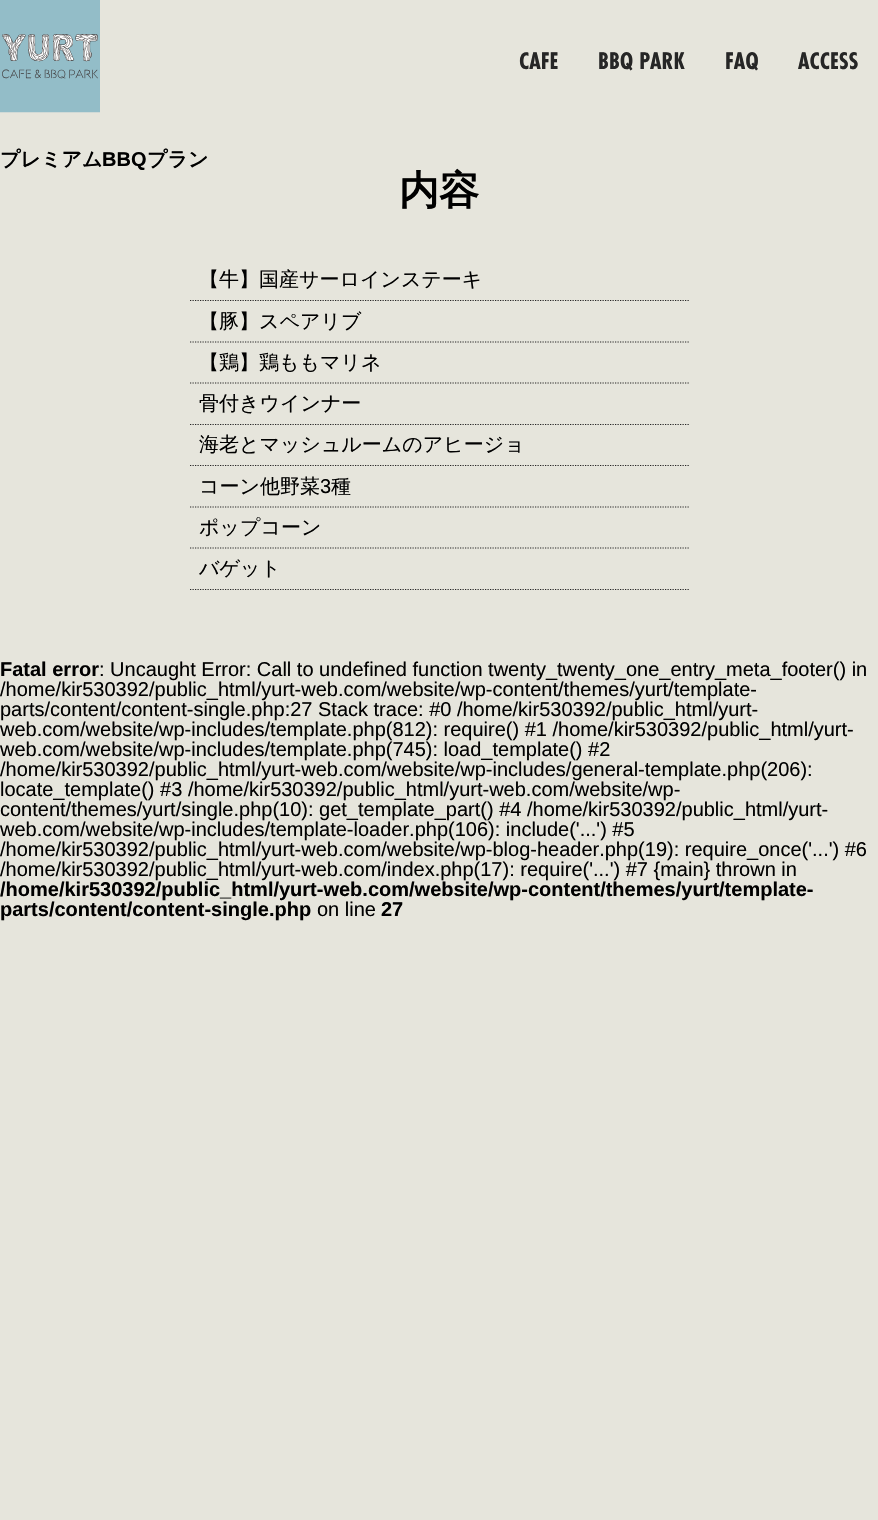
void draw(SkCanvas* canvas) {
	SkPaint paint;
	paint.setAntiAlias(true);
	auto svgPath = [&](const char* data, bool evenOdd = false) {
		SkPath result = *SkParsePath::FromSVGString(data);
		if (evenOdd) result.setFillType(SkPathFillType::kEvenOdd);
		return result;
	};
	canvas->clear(0xffe6e5dc);
	canvas->drawImageRect(SkImages::DeferredFromEncodedData(SkData::MakeFromFileName("img1.png")), SkRect::MakeXYWH(0, 0, 100, 113), SkSamplingOptions());
	SkFont f1(fontMgr->matchFamilyStyle("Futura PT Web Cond", SkFontStyle::Bold()), 25);
	f1.setSubpixel(true);
	paint.setColor(0xff262626);
	canvas->drawString("CAFE", 519, 69, f1, paint);
	canvas->drawString("BBQ PARK", 598, 69, f1, paint);
	canvas->drawString("FAQ", 725, 69, f1, paint);
	canvas->drawString("ACCESS", 798, 69, f1, paint);
	SkFont f2(fontMgr->matchFamilyStyle("WenQuanYi Zen Hei", SkFontStyle::Bold()), 20);
	f2.setSubpixel(true);
	paint.setColor(0xff000000);
	canvas->drawString("プレミアム", 0, 166, f2, paint);
	SkFont f3(fontMgr->matchFamilyStyle("Liberation Sans", SkFontStyle::Bold()), 20);
	f3.setSubpixel(true);
	canvas->drawString("BBQ", 102, 166, f3, paint);
	canvas->drawString("プラン", 147, 166, f2, paint);
	SkFont f4(fontMgr->matchFamilyStyle("WenQuanYi Zen Hei", SkFontStyle::Bold()), 40);
	f4.setSubpixel(true);
	canvas->drawString("内容", 399, 204, f4, paint);
	paint.setStroke(true);
	paint.setStrokeWidth(1.2);
	paint.setColor(0xff262626);
	paint.setPathEffect(SkDashPathEffect::Make({{1.25f, 1.25f}}, 0));
	canvas->drawPath(svgPath("M190 300.5H690"), paint);
	paint.setPathEffect(nullptr);
	SkFont f5(fontMgr->matchFamilyStyle("WenQuanYi Zen Hei", SkFontStyle(500, SkFontStyle::kNormal_Width, SkFontStyle::kUpright_Slant)), 20);
	f5.setSubpixel(true);
	paint.setStroke(false);
	paint.setColor(0xff000000);
	canvas->drawString("【牛】国産サーロインステーキ", 199, 286, f5, paint);
	paint.setStroke(true);
	paint.setColor(0xff262626);
	paint.setPathEffect(SkDashPathEffect::Make({{1.25f, 1.25f}}, 0));
	canvas->drawPath(svgPath("M190 342H690"), paint);
	paint.setPathEffect(nullptr);
	paint.setStroke(false);
	paint.setColor(0xff000000);
	canvas->drawString("【豚】スペアリブ", 199, 328, f5, paint);
	paint.setStroke(true);
	paint.setColor(0xff262626);
	paint.setPathEffect(SkDashPathEffect::Make({{1.25f, 1.25f}}, 0));
	canvas->drawPath(svgPath("M190 383H690"), paint);
	paint.setPathEffect(nullptr);
	paint.setStroke(false);
	paint.setColor(0xff000000);
	canvas->drawString("【鶏】鶏ももマリネ", 199, 369, f5, paint);
	paint.setStroke(true);
	paint.setColor(0xff262626);
	paint.setPathEffect(SkDashPathEffect::Make({{1.25f, 1.25f}}, 0));
	canvas->drawPath(svgPath("M190 424.5H690"), paint);
	paint.setPathEffect(nullptr);
	paint.setStroke(false);
	paint.setColor(0xff000000);
	canvas->drawString("骨付きウインナー", 199, 410, f5, paint);
	paint.setStroke(true);
	paint.setColor(0xff262626);
	paint.setPathEffect(SkDashPathEffect::Make({{1.25f, 1.25f}}, 0));
	canvas->drawPath(svgPath("M190 465.5H690"), paint);
	paint.setPathEffect(nullptr);
	paint.setStroke(false);
	paint.setColor(0xff000000);
	canvas->drawString("海老とマッシュルームのアヒージョ", 199, 451, f5, paint);
	paint.setStroke(true);
	paint.setColor(0xff262626);
	paint.setPathEffect(SkDashPathEffect::Make({{1.25f, 1.25f}}, 0));
	canvas->drawPath(svgPath("M190 507H690"), paint);
	paint.setPathEffect(nullptr);
	paint.setStroke(false);
	paint.setColor(0xff000000);
	canvas->drawString("コーン他野菜", 199, 493, f5, paint);
	SkFont f6(fontMgr->matchFamilyStyle("Liberation Sans", SkFontStyle::Normal()), 20);
	f6.setSubpixel(true);
	canvas->drawString("3", 320, 493, f6, paint);
	canvas->drawString("種", 331, 493, f5, paint);
	paint.setStroke(true);
	paint.setColor(0xff262626);
	paint.setPathEffect(SkDashPathEffect::Make({{1.25f, 1.25f}}, 0));
	canvas->drawPath(svgPath("M190 548H690"), paint);
	paint.setPathEffect(nullptr);
	paint.setStroke(false);
	paint.setColor(0xff000000);
	canvas->drawString("ポップコーン", 199, 534, f5, paint);
	paint.setStroke(true);
	paint.setColor(0xff262626);
	paint.setPathEffect(SkDashPathEffect::Make({{1.25f, 1.25f}}, 0));
	canvas->drawPath(svgPath("M190 589.5H690"), paint);
	paint.setPathEffect(nullptr);
	paint.setStroke(false);
	paint.setColor(0xff000000);
	canvas->drawString("バゲット", 199, 575, f5, paint);
	canvas->drawString("Fatal error", 0, 676, f3, paint);
	canvas->drawString(": Uncaught Error: Call to undefined function twenty_twenty_one_entry_meta_footer() in", 99, 676, f6, paint);
	canvas->drawString("/home/kir530392/public_html/yurt-web.com/website/wp-content/themes/yurt/template-", 0, 696, f6, paint);
	canvas->drawString("parts/content/content-single.php:27 Stack trace: #0 /home/kir530392/public_html/yurt-", 0, 716, f6, paint);
	canvas->drawString("web.com/website/wp-includes/template.php(812): require() #1 /home/kir530392/public_html/yurt-", 0, 736, f6, paint);
	canvas->drawString("web.com/website/wp-includes/template.php(745): load_template() #2", 0, 756, f6, paint);
	canvas->drawString("/home/kir530392/public_html/yurt-web.com/website/wp-includes/general-template.php(206):", 0, 776, f6, paint);
	canvas->drawString("locate_template() #3 /home/kir530392/public_html/yurt-web.com/website/wp-", 0, 796, f6, paint);
	canvas->drawString("content/themes/yurt/single.php(10): get_template_part() #4 /home/kir530392/public_html/yurt-", 0, 816, f6, paint);
	canvas->drawString("web.com/website/wp-includes/template-loader.php(106): include('...') #5", 0, 836, f6, paint);
	canvas->drawString("/home/kir530392/public_html/yurt-web.com/website/wp-blog-header.php(19): require_once('...') #6", 0, 856, f6, paint);
	canvas->drawString("/home/kir530392/public_html/yurt-web.com/index.php(17): require('...') #7 {main} thrown in", 0, 876, f6, paint);
	canvas->drawString("/home/kir530392/public_html/yurt-web.com/website/wp-content/themes/yurt/template-", 0, 896, f3, paint);
	canvas->drawString("parts/content/content-single.php", 0, 916, f3, paint);
	canvas->drawString("on line", 317, 916, f6, paint);
	canvas->drawString("27", 381, 916, f3, paint);
}
